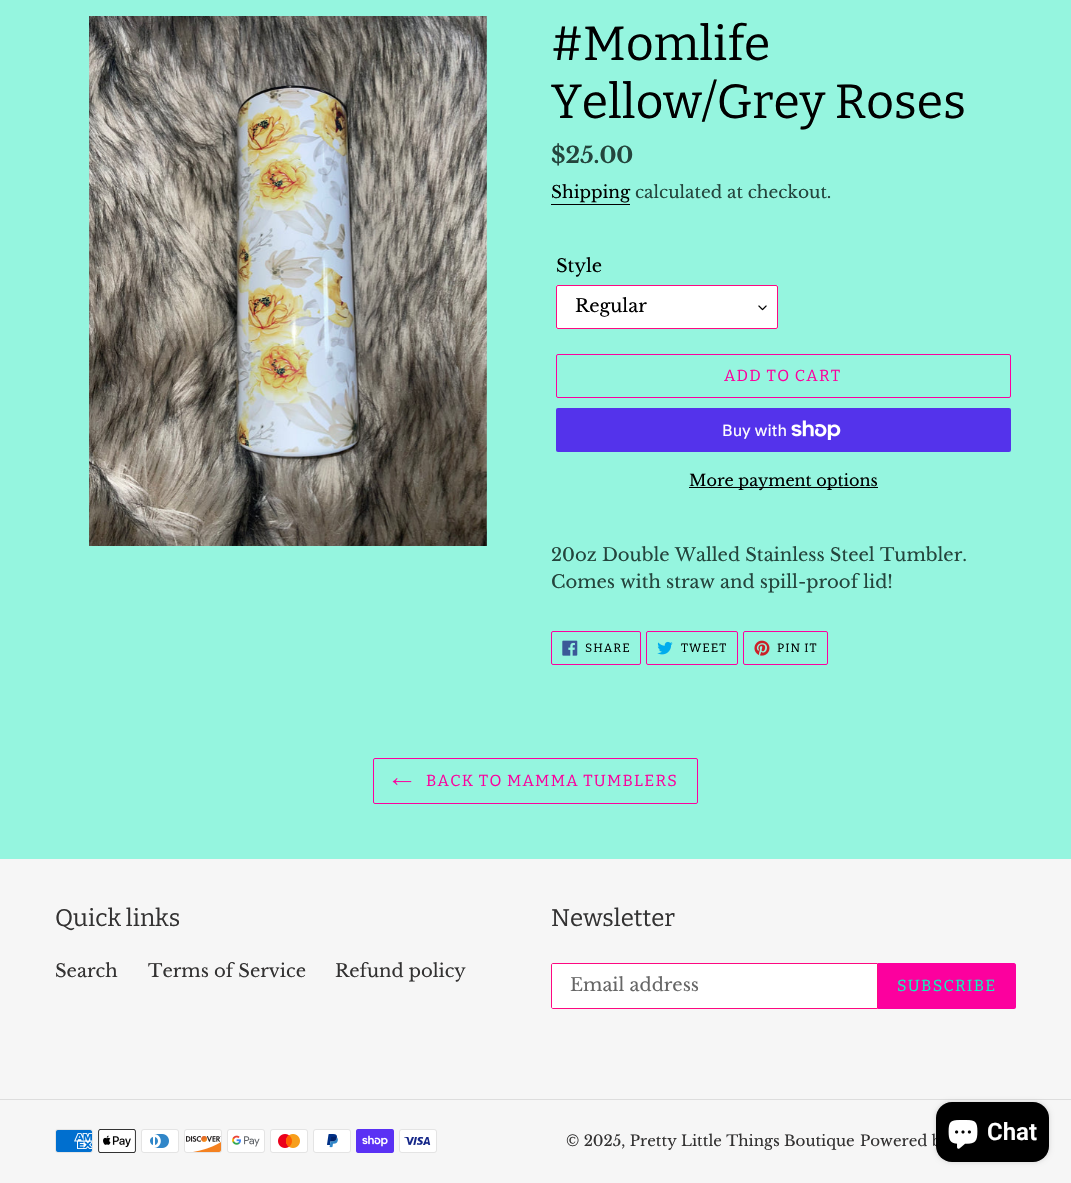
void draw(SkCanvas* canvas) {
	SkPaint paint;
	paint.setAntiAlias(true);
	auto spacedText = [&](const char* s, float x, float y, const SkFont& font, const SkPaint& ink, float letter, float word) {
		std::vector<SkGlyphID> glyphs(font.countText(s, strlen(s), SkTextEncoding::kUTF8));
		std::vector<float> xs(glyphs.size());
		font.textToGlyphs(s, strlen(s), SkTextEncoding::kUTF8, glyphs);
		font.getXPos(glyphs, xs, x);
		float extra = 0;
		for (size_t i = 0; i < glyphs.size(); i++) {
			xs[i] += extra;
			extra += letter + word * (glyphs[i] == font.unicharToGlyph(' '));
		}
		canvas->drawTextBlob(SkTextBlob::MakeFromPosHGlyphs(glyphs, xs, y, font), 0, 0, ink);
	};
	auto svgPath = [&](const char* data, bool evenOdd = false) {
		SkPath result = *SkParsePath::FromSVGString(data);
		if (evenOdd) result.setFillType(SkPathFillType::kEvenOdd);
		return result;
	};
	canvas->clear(0xff95f5df);
	canvas->drawImageRect(SkImages::DeferredFromEncodedData(SkData::MakeFromFileName("img1.png")), SkRect::MakeXYWH(89, 16, 398, 530), SkSamplingOptions());
	SkFont f1(fontMgr->matchFamilyStyle("Bitter", SkFontStyle::Normal()), 48);
	f1.setSubpixel(true);
	paint.setColor(0xff000000);
	canvas->drawString("#Momlife", 551, 60, f1, paint);
	canvas->drawString("Yellow/Grey Roses", 551, 118, f1, paint);
	SkFont f2(fontMgr->matchFamilyStyle("Libre Baskerville", SkFontStyle::Bold()), 22.5);
	f2.setSubpixel(true);
	paint.setColor(0xff24453d);
	canvas->drawString("$25.00", 551, 163, f2, paint);
	SkFont f3(fontMgr->matchFamilyStyle("Libre Baskerville", SkFontStyle::Normal()), 17);
	f3.setSubpixel(true);
	paint.setColor(0xff000000);
	canvas->drawString("Shipping", 551, 198, f3, paint);
	canvas->drawRect(SkRect::MakeXYWH(551, 204, 79, 1), paint);
	paint.setColor(0xff24453d);
	canvas->drawString("calculated at checkout.", 635, 198, f3, paint);
	SkFont f4(fontMgr->matchFamilyStyle("Libre Baskerville", SkFontStyle::Normal()), 18);
	f4.setSubpixel(true);
	paint.setColor(0xff000000);
	canvas->drawString("Style", 556, 272, f4, paint);
	paint.setColor(0xffffffff);
	canvas->drawRoundRect(SkRect::MakeXYWH(556, 285, 222, 44), 2, 2, paint);
	canvas->drawImageRect(SkImages::DeferredFromEncodedData(SkData::MakeFromFileName("img2.png")), SkRect::MakeXYWH(758, 305, 9, 6), SkSamplingOptions());
	paint.setStroke(true);
	paint.setStrokeWidth(1);
	paint.setColor(0xfffd0881);
	canvas->drawRoundRect(SkRect::MakeXYWH(556.5, 285.5, 221, 43), 1.5, 1.5, paint);
	paint.setStroke(false);
	paint.setColor(0xff000000);
	canvas->drawString("Regular", 575, 312, f4, paint);
	paint.setStroke(true);
	paint.setColor(0xfffc009e);
	canvas->drawRoundRect(SkRect::MakeXYWH(556.5, 354.5, 454, 43), 1.5, 1.5, paint);
	SkFont f5(fontMgr->matchFamilyStyle("Bitter", SkFontStyle::Normal()), 16);
	f5.setSubpixel(true);
	paint.setStroke(false);
	spacedText("ADD TO CART", 724, 381, f5, paint, 1.25, 0);
	paint.setColor(0xff5433eb);
	canvas->drawRoundRect(SkRect::MakeXYWH(556, 408, 455, 44), 2, 2, paint);
	SkFont f6(fontMgr->matchFamilyStyle("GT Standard", SkFontStyle::Normal()), 16);
	f6.setSubpixel(true);
	paint.setColor(0xffffffff);
	canvas->drawString("Buy with", 722, 436, f6, paint);
	canvas->drawImageRect(SkImages::DeferredFromEncodedData(SkData::MakeFromFileName("img3.png")), SkRect::MakeXYWH(791, 420, 50, 20), SkSamplingOptions());
	paint.setColor(0xff000000);
	canvas->drawRect(SkRect::MakeXYWH(689, 487, 189, 1), paint);
	SkFont f7(fontMgr->matchFamilyStyle("Libre Baskerville", SkFontStyle::Normal()), 16);
	f7.setSubpixel(true);
	canvas->drawString("More payment options", 689, 486, f7, paint);
	paint.setColor(0xff24453d);
	canvas->drawString("20oz Double Walled Stainless Steel Tumbler.", 551, 561, f4, paint);
	canvas->drawString("Comes with straw and spill-proof lid!", 551, 588, f4, paint);
	paint.setStroke(true);
	paint.setColor(0xfffc009e);
	canvas->drawRoundRect(SkRect::MakeXYWH(551.5, 631.5, 89, 33), 1.5, 1.5, paint);
	canvas->drawImageRect(SkImages::DeferredFromEncodedData(SkData::MakeFromFileName("img4.png")), SkRect::MakeXYWH(562, 640, 16, 16), SkSamplingOptions());
	SkFont f8(fontMgr->matchFamilyStyle("Bitter", SkFontStyle::Normal()), 12);
	f8.setSubpixel(true);
	paint.setStroke(false);
	paint.setColor(0xff000000);
	spacedText("SHARE", 585, 652, f8, paint, 1, 0);
	paint.setStroke(true);
	paint.setColor(0xfffc009e);
	canvas->drawRoundRect(SkRect::MakeXYWH(646.5, 631.5, 91, 33), 1.5, 1.5, paint);
	canvas->drawImageRect(SkImages::DeferredFromEncodedData(SkData::MakeFromFileName("img5.png")), SkRect::MakeXYWH(657, 641, 16, 14), SkSamplingOptions());
	paint.setStroke(false);
	paint.setColor(0xff000000);
	spacedText("TWEET", 681, 652, f8, paint, 1, 0);
	paint.setStroke(true);
	paint.setColor(0xfffc009e);
	canvas->drawRoundRect(SkRect::MakeXYWH(743.5, 631.5, 84, 33), 1.5, 1.5, paint);
	canvas->drawImageRect(SkImages::DeferredFromEncodedData(SkData::MakeFromFileName("img6.png")), SkRect::MakeXYWH(754, 640, 16, 16), SkSamplingOptions());
	paint.setStroke(false);
	paint.setColor(0xff000000);
	spacedText("PIN IT", 777, 652, f8, paint, 1, 0);
	paint.setStroke(true);
	paint.setColor(0xfffc009e);
	canvas->drawRoundRect(SkRect::MakeXYWH(373.5, 758.5, 324, 45), 1.5, 1.5, paint);
	canvas->drawImageRect(SkImages::DeferredFromEncodedData(SkData::MakeFromFileName("img7.png")), SkRect::MakeXYWH(392, 778, 20, 8), SkSamplingOptions());
	paint.setStroke(false);
	spacedText("BACK TO MAMMA TUMBLERS", 426, 786, f5, paint, 1.25, 0);
	paint.setColor(0xfff6f6f6);
	canvas->drawRect(SkRect::MakeXYWH(0, 859, 1071, 324), paint);
	SkFont f9(fontMgr->matchFamilyStyle("Bitter", SkFontStyle::Normal()), 24);
	f9.setSubpixel(true);
	paint.setColor(0xff333232);
	canvas->drawString("Quick links", 55, 926, f9, paint);
	canvas->drawString("Search", 55, 977, f4, paint);
	canvas->drawString("Terms of Service", 148, 977, f4, paint);
	canvas->drawString("Refund policy", 335, 977, f4, paint);
	canvas->drawString("Newsletter", 551, 926, f9, paint);
	paint.setColor(0xffffffff);
	canvas->drawPath(svgPath("M553 963.5H877.5V1008.5H553C552 1008.5 551.5 1008 551.5 1007V965C551.5 964 552 963.5 553 963.5Z"), paint);
	paint.setStroke(true);
	paint.setColor(0xfffd0881);
	canvas->drawPath(svgPath("M553 963.5H877.5V1008.5H553C552 1008.5 551.5 1008 551.5 1007V965C551.5 964 552 963.5 553 963.5Z"), paint);
	paint.setStroke(false);
	paint.setColor(0xff666666);
	canvas->drawString("Email address", 570, 991, f4, paint);
	paint.setColor(0xfffc009e);
	canvas->drawPath(svgPath("M878 963H1014C1015 963 1016 964 1016 965V1007C1016 1008 1015 1009 1014 1009H878Z"), paint);
	paint.setColor(0xff11f1be);
	spacedText("SUBSCRIBE", 897, 991, f5, paint, 1.25, 0);
	paint.setColor(0xffdddddd);
	canvas->drawRect(SkRect::MakeXYWH(0, 1099, 1071, 1), paint);
	canvas->drawImageRect(SkImages::DeferredFromEncodedData(SkData::MakeFromFileName("img8.png")), SkRect::MakeXYWH(55, 1129, 38, 24), SkSamplingOptions());
	canvas->drawImageRect(SkImages::DeferredFromEncodedData(SkData::MakeFromFileName("img9.png")), SkRect::MakeXYWH(98, 1129, 38, 24), SkSamplingOptions());
	canvas->drawImageRect(SkImages::DeferredFromEncodedData(SkData::MakeFromFileName("img10.png")), SkRect::MakeXYWH(141, 1129, 38, 24), SkSamplingOptions());
	canvas->drawImageRect(SkImages::DeferredFromEncodedData(SkData::MakeFromFileName("img11.png")), SkRect::MakeXYWH(184, 1129, 38, 24), SkSamplingOptions());
	canvas->drawImageRect(SkImages::DeferredFromEncodedData(SkData::MakeFromFileName("img12.png")), SkRect::MakeXYWH(227, 1129, 38, 24), SkSamplingOptions());
	canvas->drawImageRect(SkImages::DeferredFromEncodedData(SkData::MakeFromFileName("img13.png")), SkRect::MakeXYWH(270, 1129, 38, 24), SkSamplingOptions());
	canvas->drawImageRect(SkImages::DeferredFromEncodedData(SkData::MakeFromFileName("img14.png")), SkRect::MakeXYWH(313, 1129, 38, 24), SkSamplingOptions());
	canvas->drawImageRect(SkImages::DeferredFromEncodedData(SkData::MakeFromFileName("img15.png")), SkRect::MakeXYWH(356, 1129, 38, 24), SkSamplingOptions());
	canvas->drawImageRect(SkImages::DeferredFromEncodedData(SkData::MakeFromFileName("img16.png")), SkRect::MakeXYWH(399, 1129, 38, 24), SkSamplingOptions());
	SkFont f10(fontMgr->matchFamilyStyle("Libre Baskerville", SkFontStyle::Normal()), 15);
	f10.setSubpixel(true);
	paint.setColor(0xff333232);
	canvas->drawString("© 2025, Pretty Little Things Boutique", 566, 1146, f10, paint);
	canvas->drawString("Powered b", 860, 1146, f10, paint);
	paint.setColor(0x26000000);
	paint.setMaskFilter(SkMaskFilter::MakeBlur(kNormal_SkBlurStyle, 2.5));
	canvas->drawRoundRect(SkRect::MakeXYWH(936, 1102, 113, 60), 16, 16, paint);
	paint.setMaskFilter(nullptr);
	paint.setColor(0xff000000);
	canvas->drawRoundRect(SkRect::MakeXYWH(936, 1102, 113, 60), 16, 16, paint);
	canvas->drawImageRect(SkImages::DeferredFromEncodedData(SkData::MakeFromFileName("img17.png")), SkRect::MakeXYWH(948, 1120, 30, 29), SkSamplingOptions());
	SkFont f11(fontMgr->matchFamilyStyle("Roboto", SkFontStyle(600, SkFontStyle::kNormal_Width, SkFontStyle::kUpright_Slant)), 24);
	f11.setSubpixel(true);
	paint.setColor(0xffffffff);
	canvas->drawString("Chat", 987, 1140, f11, paint);
}
